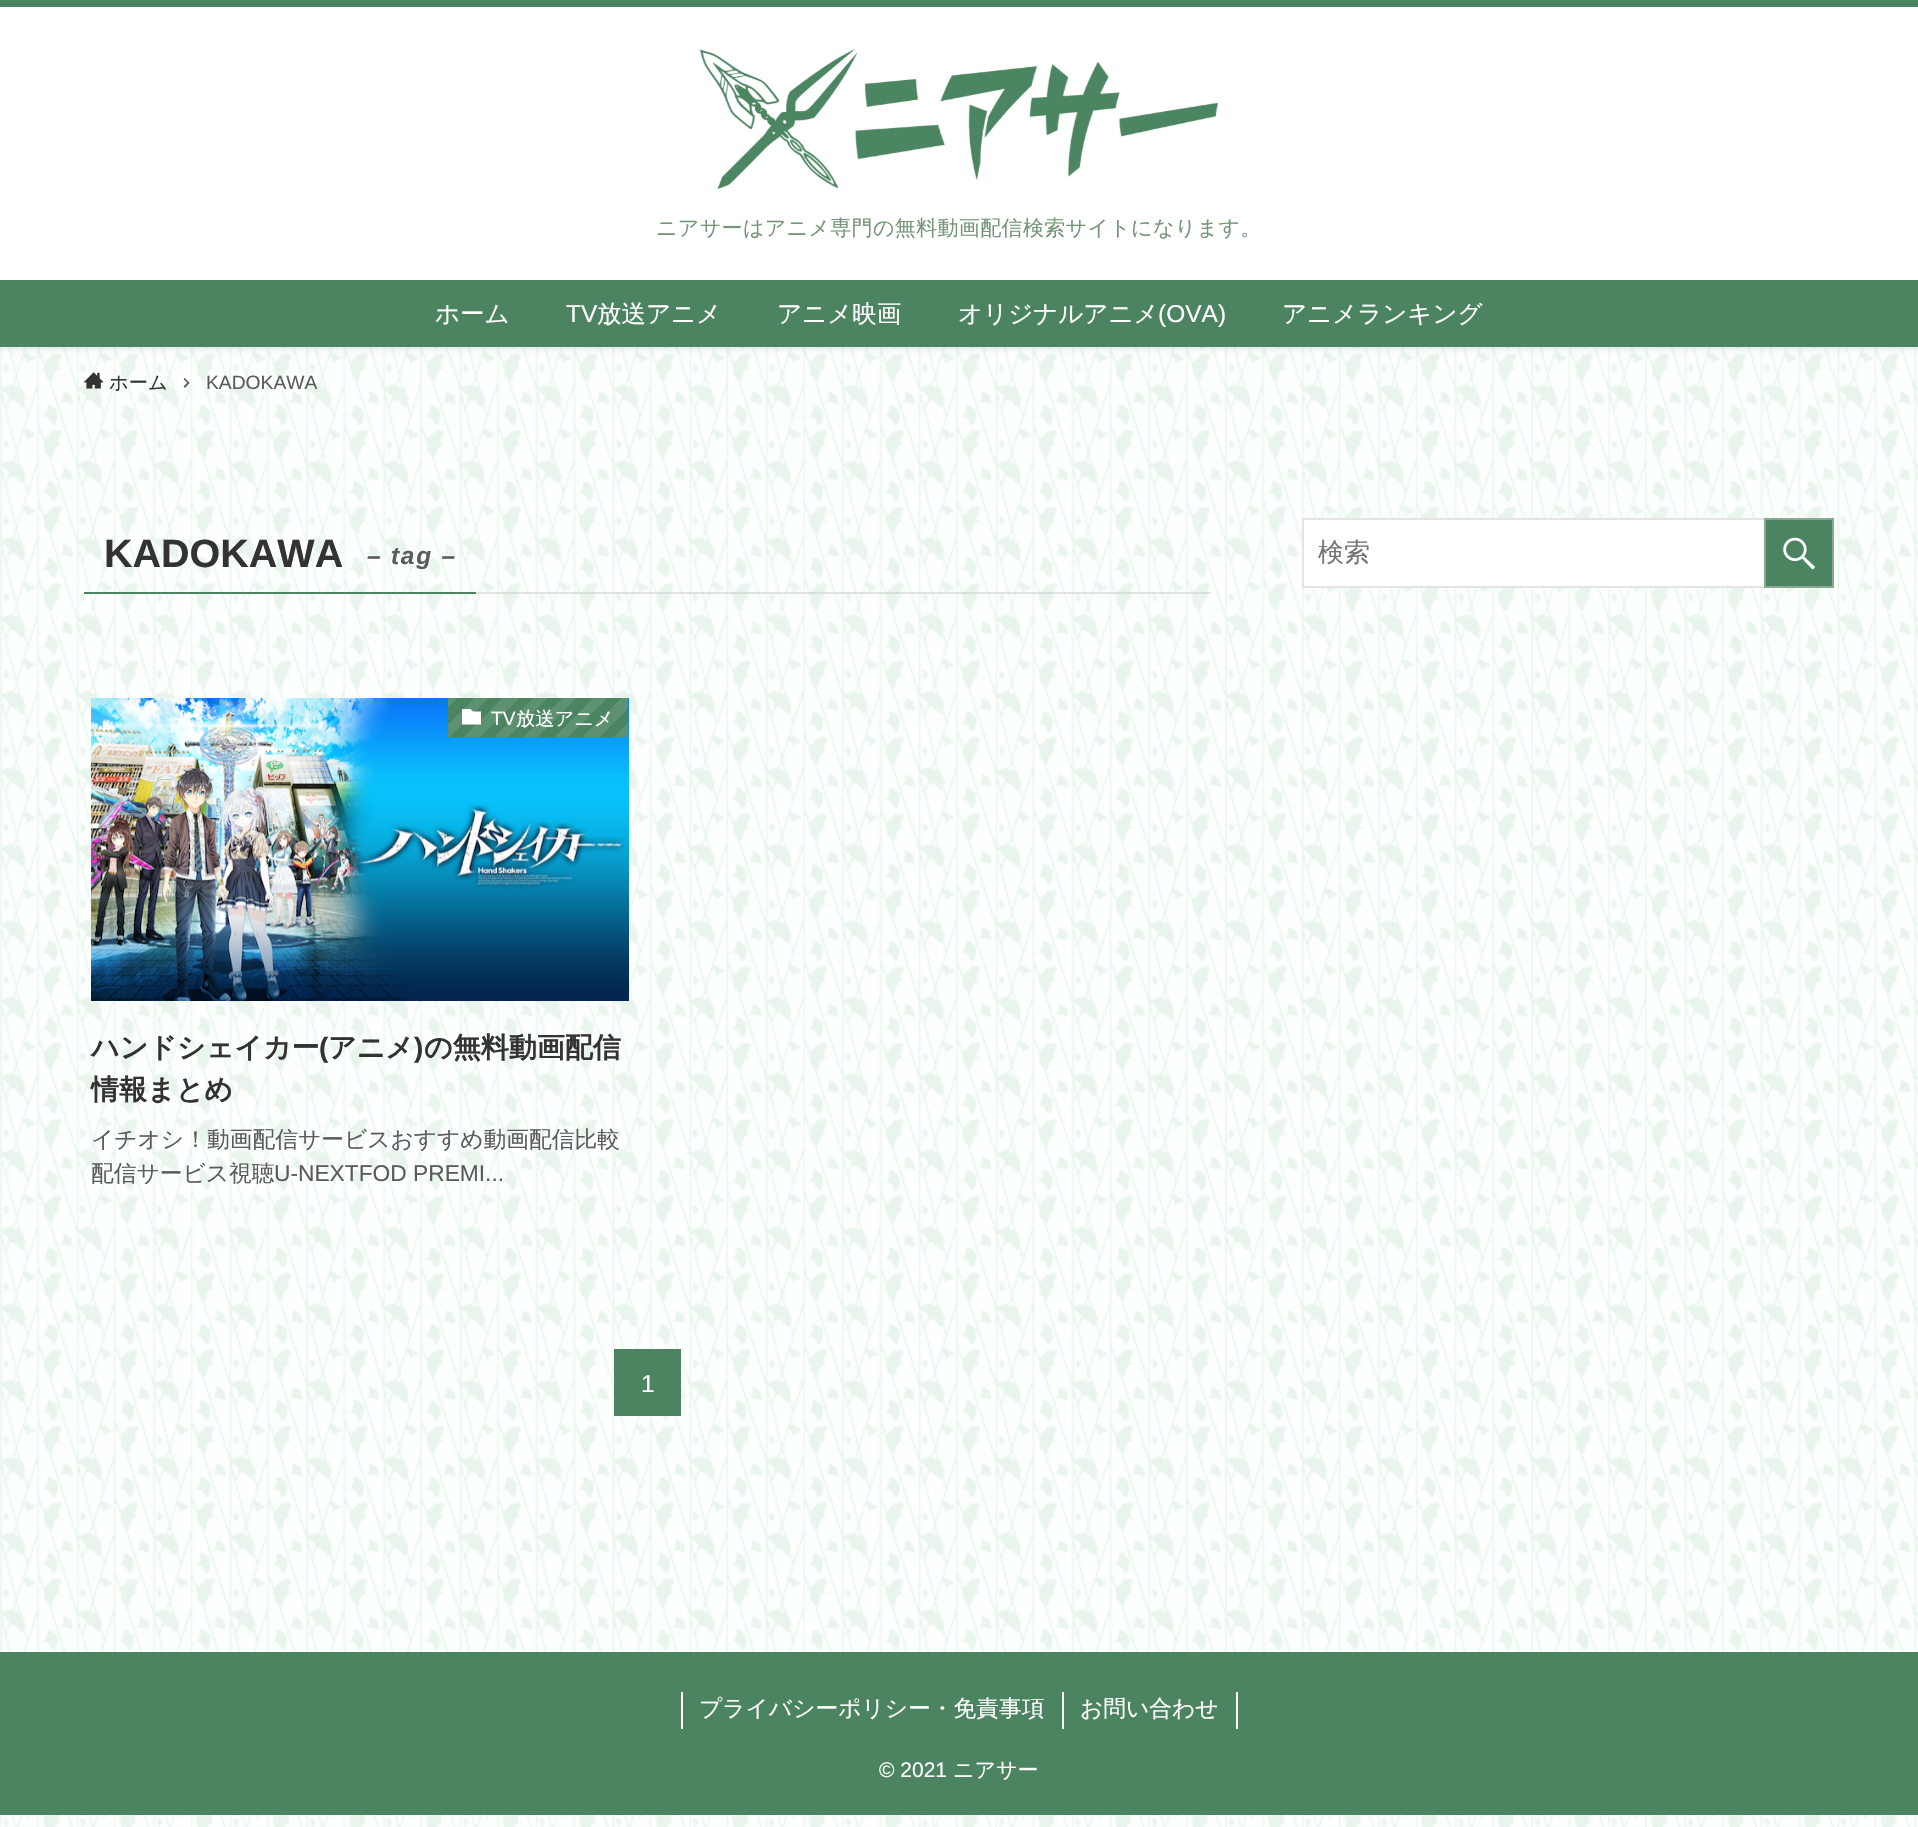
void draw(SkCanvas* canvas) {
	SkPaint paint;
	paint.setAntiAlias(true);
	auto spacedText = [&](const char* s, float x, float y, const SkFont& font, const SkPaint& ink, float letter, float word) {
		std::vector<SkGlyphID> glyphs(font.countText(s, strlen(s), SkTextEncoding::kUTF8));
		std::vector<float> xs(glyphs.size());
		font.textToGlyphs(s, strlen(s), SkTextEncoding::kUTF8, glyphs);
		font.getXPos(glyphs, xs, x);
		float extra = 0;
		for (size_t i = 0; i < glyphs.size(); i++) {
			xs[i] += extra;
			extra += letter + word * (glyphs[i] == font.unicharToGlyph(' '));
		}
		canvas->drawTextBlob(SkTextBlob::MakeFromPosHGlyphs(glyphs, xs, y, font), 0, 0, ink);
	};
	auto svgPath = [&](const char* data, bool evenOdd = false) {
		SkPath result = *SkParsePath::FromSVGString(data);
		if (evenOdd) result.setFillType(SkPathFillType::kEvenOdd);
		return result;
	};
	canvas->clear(0xfffcfffe);
	canvas->drawImageRect(SkImages::DeferredFromEncodedData(SkData::MakeFromFileName("img2.png")), SkRect::MakeXYWH(0, 347, 1918, 1480), SkSamplingOptions());
	paint.setColor(0x1f000000);
	paint.setMaskFilter(SkMaskFilter::MakeBlur(kNormal_SkBlurStyle, 3.5));
	canvas->drawRect(SkRect::MakeXYWH(0, 2, 1918, 346), paint);
	paint.setMaskFilter(nullptr);
	paint.setColor(0xffffffff);
	canvas->drawRect(SkRect::MakeXYWH(0, 7, 1918, 273), paint);
	paint.setColor(0xff4c8462);
	canvas->drawRect(SkRect::MakeXYWH(0, 0, 1918, 7), paint);
	canvas->drawImageRect(SkImages::DeferredFromEncodedData(SkData::MakeFromFileName("img1.png")), SkRect::MakeXYWH(699, 49, 520, 140), SkSamplingOptions());
	SkFont f1(fontMgr->matchFamilyStyle("WenQuanYi Zen Hei", SkFontStyle(500, SkFontStyle::kNormal_Width, SkFontStyle::kUpright_Slant)), 21);
	f1.setSubpixel(true);
	paint.setColor(0xff759679);
	spacedText("ニアサーはアニメ専門の無料動画配信検索サイトになります。", 656, 235, f1, paint, 0.35, 0);
	paint.setColor(0xff4c8462);
	canvas->drawRect(SkRect::MakeXYWH(0, 280, 1918, 67), paint);
	SkFont f2(fontMgr->matchFamilyStyle("WenQuanYi Zen Hei", SkFontStyle(500, SkFontStyle::kNormal_Width, SkFontStyle::kUpright_Slant)), 24.5);
	f2.setSubpixel(true);
	paint.setColor(0xffffffff);
	canvas->drawString("ホーム", 435, 322, f2, paint);
	SkFont f3(fontMgr->matchFamilyStyle("Liberation Sans", SkFontStyle::Normal()), 24.5);
	f3.setSubpixel(true);
	canvas->drawString("TV", 566, 322, f3, paint);
	canvas->drawString("放送アニメ", 597, 322, f2, paint);
	canvas->drawString("アニメ映画", 777, 322, f2, paint);
	canvas->drawString("オリジナルアニメ", 958, 322, f2, paint);
	canvas->drawString("(OVA)", 1158, 322, f3, paint);
	canvas->drawString("アニメランキング", 1282, 322, f2, paint);
	canvas->drawImageRect(SkImages::DeferredFromEncodedData(SkData::MakeFromFileName("img3.png")), SkRect::MakeXYWH(84, 372, 20, 17), SkSamplingOptions());
	SkFont f4(fontMgr->matchFamilyStyle("WenQuanYi Zen Hei", SkFontStyle(500, SkFontStyle::kNormal_Width, SkFontStyle::kUpright_Slant)), 19.25);
	f4.setSubpixel(true);
	paint.setColor(0xff333333);
	canvas->drawString("ホーム", 109, 389, f4, paint);
	paint.setColor(0xff5b5c5c);
	canvas->drawPath(svgPath("M185 378L189.5 383L188.5 384L183.5 379Z"), paint);
	canvas->drawPath(svgPath("M188.5 381.5L189.5 383L185 388L183.5 386.5Z"), paint);
	SkFont f5(fontMgr->matchFamilyStyle("Liberation Sans", SkFontStyle::Normal()), 19.25);
	f5.setSubpixel(true);
	paint.setColor(0xff5a5b5b);
	canvas->drawString("KADOKAWA", 206, 389, f5, paint);
	paint.setColor(0x80c8c8c8);
	canvas->drawRect(SkRect::MakeXYWH(476, 592, 735, 2), paint);
	paint.setColor(0xff4c8462);
	canvas->drawRect(SkRect::MakeXYWH(84, 592, 392, 2), paint);
	SkFont f6(fontMgr->matchFamilyStyle("Liberation Sans", SkFontStyle::Bold()), 39.5);
	f6.setSubpixel(true);
	paint.setColor(0xff333333);
	canvas->drawString("KADOKAWA", 104, 567, f6, paint);
	SkFont f7(fontMgr->matchFamilyStyle("Liberation Sans", SkFontStyle::BoldItalic()), 24.5);
	f7.setSubpixel(true);
	paint.setColor(0xff5a5b5b);
	spacedText("– tag –", 367, 564, f7, paint, 1.75, 0);
	canvas->drawImageRect(SkImages::DeferredFromEncodedData(SkData::MakeFromFileName("img4.png")), SkRect::MakeXYWH(91, 698, 538, 303), SkSamplingOptions());
	{
		const SkColor colors[] = {0xff5e9072, 0xff5e9072, 0xff4c8462, 0xff4c8462, 0xff5e9072, 0xff5e9072, 0xff4c8462, 0xff4c8462, 0xff5e9072, 0xff5e9072, 0xff4c8462, 0xff4c8462, 0xff5e9072, 0xff5e9072, 0xff4c8462, 0xff4c8462, 0xff5e9072, 0xff5e9072, 0xff4c8462, 0xff4c8462, 0xff5e9072, 0xff5e9072, 0xff4c8462, 0xff4c8462, 0xff5e9072, 0xff5e9072, 0xff4c8462, 0xff4c8462, 0xff5e9072, 0xff5e9072, 0xff4c8462, 0xff4c8462};
		const float stops[] = {0, 0.06, 0.06, 0.12, 0.12, 0.19, 0.19, 0.25, 0.25, 0.31, 0.31, 0.38, 0.38, 0.44, 0.44, 0.5, 0.5, 0.56, 0.56, 0.62, 0.62, 0.69, 0.69, 0.75, 0.75, 0.81, 0.81, 0.88, 0.88, 0.94, 0.94, 1};
		const SkPoint ends[] = {{593, 772}, {474, 653}};
		paint.setShader(SkGradientShader::MakeLinear(ends, colors, stops, 32, SkTileMode::kClamp));
		paint.setAlpha(255);
	}
	canvas->drawRect(SkRect::MakeXYWH(448, 698, 180, 39), paint);
	paint.setShader(nullptr);
	paint.setColor(0xffffffff);
	canvas->drawPath(svgPath("M470.5 709L473 711.5H481V724.5H462V709Z"), paint);
	canvas->drawString("TV", 491, 725, f5, paint);
	canvas->drawString("放送アニメ", 516, 725, f4, paint);
	SkFont f8(fontMgr->matchFamilyStyle("WenQuanYi Zen Hei", SkFontStyle::Bold()), 28);
	f8.setSubpixel(true);
	paint.setColor(0xff333333);
	canvas->drawString("ハンドシェイカー", 91, 1057, f8, paint);
	SkFont f9(fontMgr->matchFamilyStyle("Liberation Sans", SkFontStyle::Bold()), 28);
	f9.setSubpixel(true);
	canvas->drawString("(", 319, 1057, f9, paint);
	canvas->drawString("アニメ", 328, 1057, f8, paint);
	canvas->drawString(")", 414, 1057, f9, paint);
	canvas->drawString("の無料動画配信", 424, 1057, f8, paint);
	canvas->drawString("情報まとめ", 91, 1099, f8, paint);
	SkFont f10(fontMgr->matchFamilyStyle("WenQuanYi Zen Hei", SkFontStyle(500, SkFontStyle::kNormal_Width, SkFontStyle::kUpright_Slant)), 22.75);
	f10.setSubpixel(true);
	paint.setColor(0xff5a5b5b);
	canvas->drawString("イチオシ！動画配信サービスおすすめ動画配信比較", 91, 1147, f10, paint);
	canvas->drawString("配信サービス視聴", 91, 1181, f10, paint);
	SkFont f11(fontMgr->matchFamilyStyle("Liberation Sans", SkFontStyle::Normal()), 22.75);
	f11.setSubpixel(true);
	canvas->drawString("U-NEXTFOD PREMI...", 274, 1181, f11, paint);
	paint.setColor(0xff4c8462);
	canvas->drawRect(SkRect::MakeXYWH(614, 1349, 67, 67), paint);
	paint.setColor(0xffffffff);
	canvas->drawString("1", 641, 1392, f3, paint);
	canvas->drawRect(SkRect::MakeXYWH(1304, 520, 460, 66), paint);
	paint.setStroke(true);
	paint.setStrokeWidth(2);
	paint.setColor(0xffe4e4e4);
	canvas->drawRect(SkRect::MakeXYWH(1303, 519, 530, 68), paint);
	SkFont f12(fontMgr->matchFamilyStyle("WenQuanYi Zen Hei", SkFontStyle(500, SkFontStyle::kNormal_Width, SkFontStyle::kUpright_Slant)), 26);
	f12.setSubpixel(true);
	paint.setStroke(false);
	paint.setColor(0xff757575);
	canvas->drawString("検索", 1318, 561, f12, paint);
	paint.setColor(0xff4c8462);
	canvas->drawRect(SkRect::MakeXYWH(1765, 519, 68, 68), paint);
	paint.setStroke(true);
	paint.setColor(0xff8aa695);
	canvas->drawRect(SkRect::MakeXYWH(1765, 519, 68, 68), paint);
	canvas->drawImageRect(SkImages::DeferredFromEncodedData(SkData::MakeFromFileName("img5.png")), SkRect::MakeXYWH(1783, 537, 32, 33), SkSamplingOptions());
	paint.setStroke(false);
	paint.setColor(0xff4c8462);
	canvas->drawRect(SkRect::MakeXYWH(0, 1652, 1918, 163), paint);
	paint.setColor(0xffffffff);
	canvas->drawRect(SkRect::MakeXYWH(1062, 1692, 2, 37), paint);
	canvas->drawRect(SkRect::MakeXYWH(681, 1692, 2, 37), paint);
	canvas->drawString("プライバシーポリシー・免責事項", 699, 1716, f10, paint);
	canvas->drawRect(SkRect::MakeXYWH(1236, 1692, 2, 37), paint);
	canvas->drawString("お問い合わせ", 1080, 1716, f10, paint);
	SkFont f13(fontMgr->matchFamilyStyle("Liberation Sans", SkFontStyle::Normal()), 21);
	f13.setSubpixel(true);
	canvas->drawString("© 2021", 879, 1777, f13, paint);
	canvas->drawString("ニアサー", 953, 1777, f1, paint);
}
